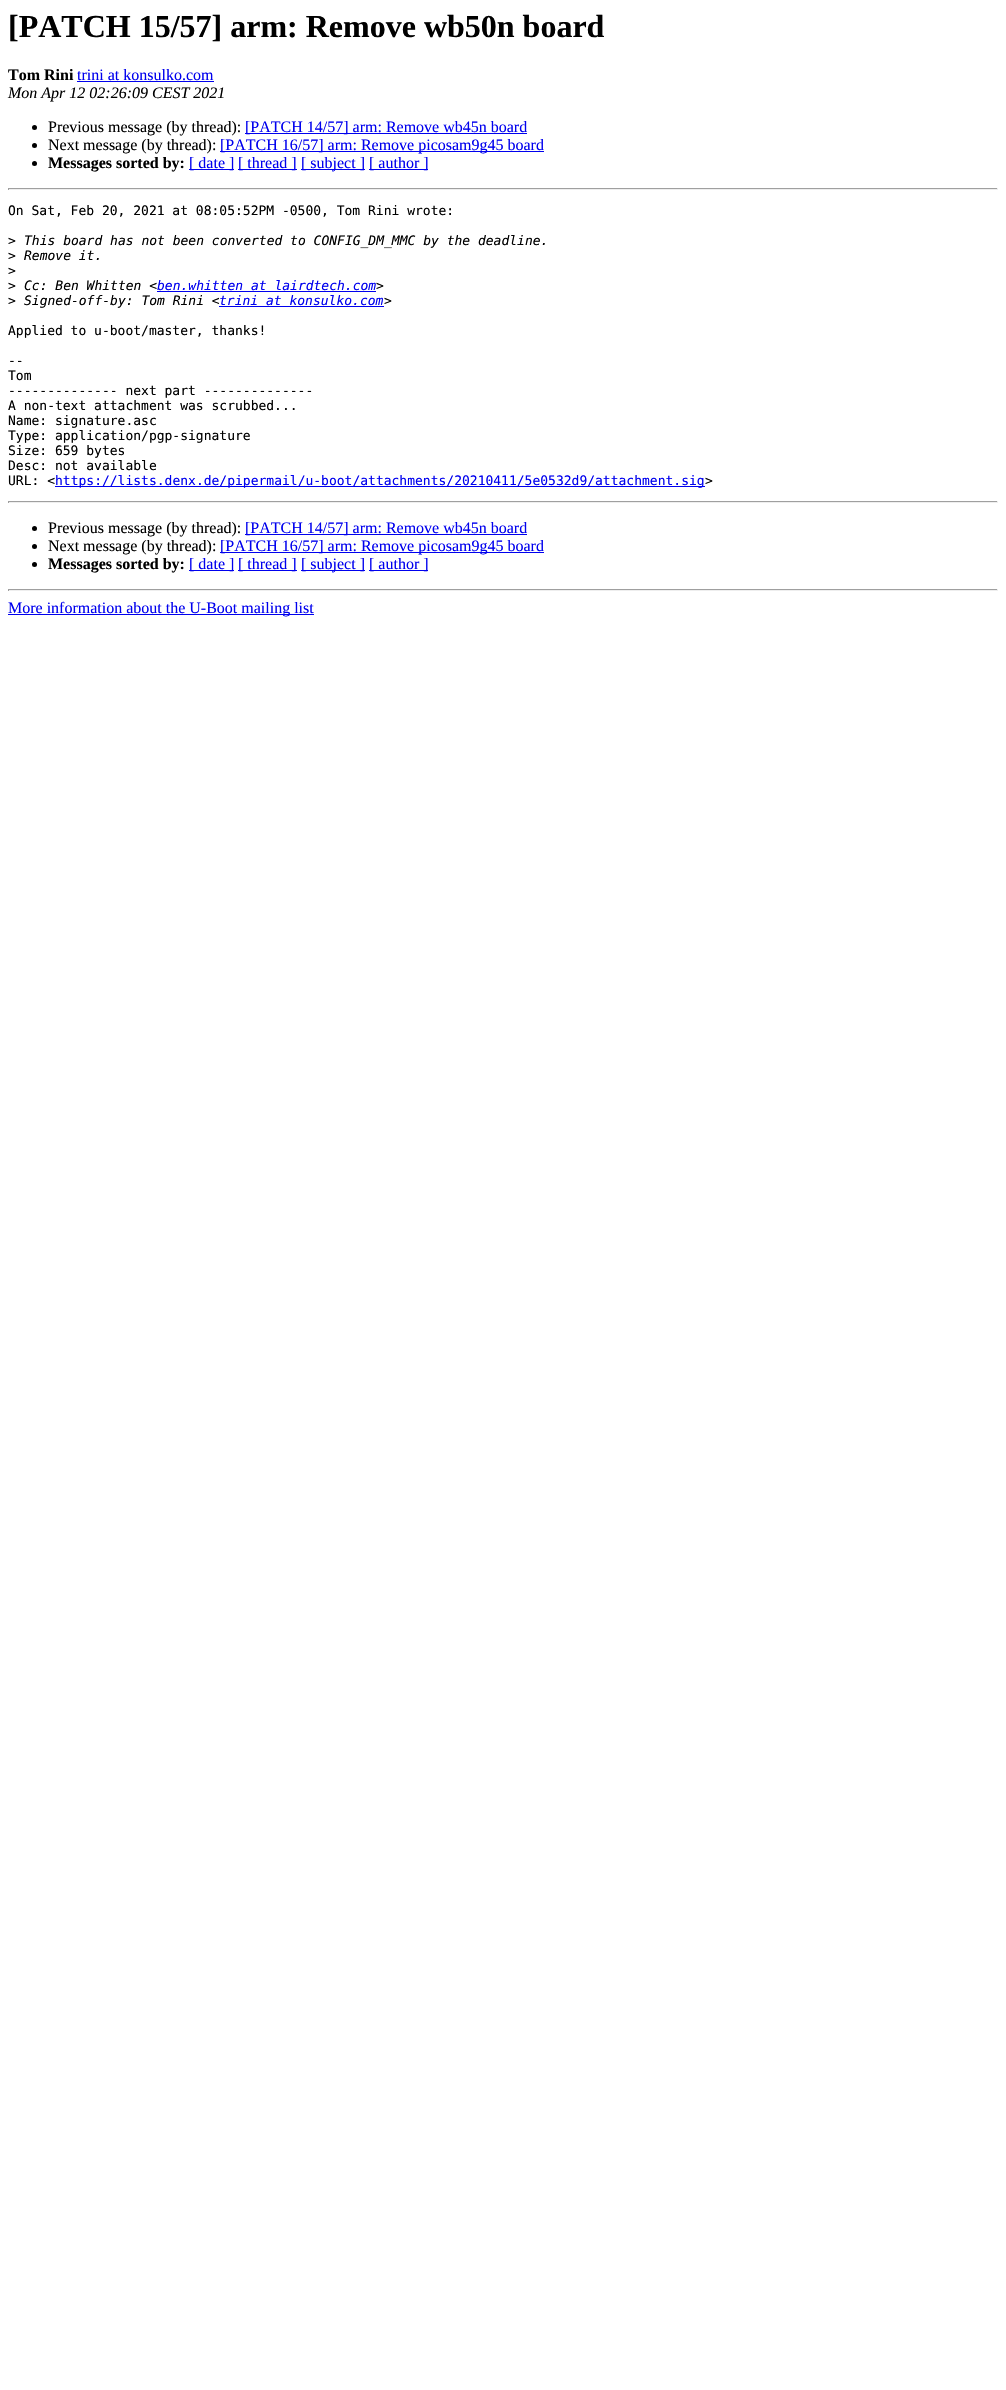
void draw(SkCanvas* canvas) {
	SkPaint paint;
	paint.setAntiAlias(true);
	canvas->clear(0xffffffff);
	SkFont f1(fontMgr->matchFamilyStyle("Liberation Serif", SkFontStyle::Bold()), 32);
	f1.setSubpixel(true);
	paint.setColor(0xff000000);
	canvas->drawString("[PATCH 15/57] arm: Remove wb50n board", 8, 37, f1, paint);
	SkFont f2(fontMgr->matchFamilyStyle("Liberation Serif", SkFontStyle::Bold()), 16);
	f2.setSubpixel(true);
	canvas->drawString("Tom Rini", 8, 80, f2, paint);
	SkFont f3(fontMgr->matchFamilyStyle("Liberation Serif", SkFontStyle::Normal()), 16);
	f3.setSubpixel(true);
	paint.setColor(0xff0000ee);
	canvas->drawString("trini at konsulko.com", 77, 80, f3, paint);
	canvas->drawRect(SkRect::MakeXYWH(77, 81, 137, 1), paint);
	SkFont f4(fontMgr->matchFamilyStyle("Liberation Serif", SkFontStyle::Italic()), 16);
	f4.setSubpixel(true);
	paint.setColor(0xff000000);
	canvas->drawString("Mon Apr 12 02:26:09 CEST 2021", 8, 98, f4, paint);
	canvas->drawCircle(34.5, 127.5, 2.5, paint);
	canvas->drawString("Previous message (by thread):", 48, 132, f3, paint);
	paint.setColor(0xff0000ee);
	canvas->drawRect(SkRect::MakeXYWH(245, 133, 282, 1), paint);
	canvas->drawString("[PATCH 14/57] arm: Remove wb45n board", 245, 132, f3, paint);
	paint.setColor(0xff000000);
	canvas->drawCircle(34.5, 145.5, 2.5, paint);
	canvas->drawString("Next message (by thread):", 48, 150, f3, paint);
	paint.setColor(0xff0000ee);
	canvas->drawRect(SkRect::MakeXYWH(220, 151, 324, 1), paint);
	canvas->drawString("[PATCH 16/57] arm: Remove picosam9g45 board", 220, 150, f3, paint);
	paint.setColor(0xff000000);
	canvas->drawCircle(34.5, 163.5, 2.5, paint);
	canvas->drawString("Messages sorted by:", 48, 168, f2, paint);
	paint.setColor(0xff0000ee);
	canvas->drawRect(SkRect::MakeXYWH(189, 169, 45, 1), paint);
	canvas->drawString("[ date ]", 189, 168, f3, paint);
	canvas->drawRect(SkRect::MakeXYWH(238, 169, 59, 1), paint);
	canvas->drawString("[ thread ]", 238, 168, f3, paint);
	canvas->drawRect(SkRect::MakeXYWH(301, 169, 64, 1), paint);
	canvas->drawString("[ subject ]", 301, 168, f3, paint);
	canvas->drawRect(SkRect::MakeXYWH(369, 169, 59, 1), paint);
	canvas->drawString("[ author ]", 369, 168, f3, paint);
	paint.setColor(0xff9f9f9f);
	canvas->drawRect(SkRect::MakeXYWH(8, 188, 990, 1), paint);
	paint.setColor(0xffeeeeee);
	canvas->drawRect(SkRect::MakeXYWH(997, 188, 1, 2), paint);
	canvas->drawRect(SkRect::MakeXYWH(8, 189, 990, 1), paint);
	paint.setColor(0xff9f9f9f);
	canvas->drawRect(SkRect::MakeXYWH(8, 188, 1, 2), paint);
	SkFont f5(fontMgr->matchFamilyStyle("DejaVu Sans Mono", SkFontStyle::Normal()), 13);
	f5.setSubpixel(true);
	paint.setColor(0xff000000);
	canvas->drawString("On Sat, Feb 20, 2021 at 08:05:52PM -0500, Tom Rini wrote:", 8, 215, f5, paint);
	canvas->drawString(">", 8, 245, f5, paint);
	SkFont f6(fontMgr->matchFamilyStyle("DejaVu Sans Mono", SkFontStyle::Italic()), 13);
	f6.setSubpixel(true);
	canvas->drawString("This board has not been converted to CONFIG_DM_MMC by the deadline.", 24, 245, f6, paint);
	canvas->drawString(">", 8, 260, f5, paint);
	canvas->drawString("Remove it.", 24, 260, f6, paint);
	canvas->drawString(">", 8, 275, f5, paint);
	canvas->drawString(">", 8, 290, f5, paint);
	canvas->drawString("Cc: Ben Whitten <", 24, 290, f6, paint);
	paint.setColor(0xff0000ee);
	canvas->drawString("ben.whitten at lairdtech.com", 157, 290, f6, paint);
	paint.setColor(0xff000000);
	canvas->drawString(">", 376, 290, f6, paint);
	paint.setColor(0xff0000ee);
	canvas->drawRect(SkRect::MakeXYWH(157, 291, 219, 1), paint);
	paint.setColor(0xff000000);
	canvas->drawString(">", 8, 305, f5, paint);
	canvas->drawString("Signed-off-by: Tom Rini <", 24, 305, f6, paint);
	paint.setColor(0xff0000ee);
	canvas->drawRect(SkRect::MakeXYWH(219, 306, 165, 1), paint);
	canvas->drawString("trini at konsulko.com", 219, 305, f6, paint);
	paint.setColor(0xff000000);
	canvas->drawString(">", 384, 305, f6, paint);
	canvas->drawString("Applied to u-boot/master, thanks!", 8, 335, f5, paint);
	canvas->drawString("--", 8, 365, f5, paint);
	canvas->drawString("Tom", 8, 380, f5, paint);
	canvas->drawString("-------------- next part --------------", 8, 395, f5, paint);
	canvas->drawString("A non-text attachment was scrubbed...", 8, 410, f5, paint);
	canvas->drawString("Name: signature.asc", 8, 425, f5, paint);
	canvas->drawString("Type: application/pgp-signature", 8, 440, f5, paint);
	canvas->drawString("Size: 659 bytes", 8, 455, f5, paint);
	canvas->drawString("Desc: not available", 8, 470, f5, paint);
	canvas->drawString("URL: <", 8, 485, f5, paint);
	paint.setColor(0xff0000ee);
	canvas->drawRect(SkRect::MakeXYWH(55, 486, 650, 1), paint);
	canvas->drawString("https://lists.denx.de/pipermail/u-boot/attachments/20210411/5e0532d9/attachment.sig", 55, 485, f5, paint);
	paint.setColor(0xff000000);
	canvas->drawString(">", 705, 485, f5, paint);
	paint.setColor(0xff9f9f9f);
	canvas->drawRect(SkRect::MakeXYWH(8, 501, 990, 1), paint);
	paint.setColor(0xffeeeeee);
	canvas->drawRect(SkRect::MakeXYWH(997, 501, 1, 2), paint);
	canvas->drawRect(SkRect::MakeXYWH(8, 502, 990, 1), paint);
	paint.setColor(0xff9f9f9f);
	canvas->drawRect(SkRect::MakeXYWH(8, 501, 1, 2), paint);
	paint.setColor(0xff000000);
	canvas->drawCircle(34.5, 528.5, 2.5, paint);
	canvas->drawString("Previous message (by thread):", 48, 533, f3, paint);
	paint.setColor(0xff0000ee);
	canvas->drawRect(SkRect::MakeXYWH(245, 534, 282, 1), paint);
	canvas->drawString("[PATCH 14/57] arm: Remove wb45n board", 245, 533, f3, paint);
	paint.setColor(0xff000000);
	canvas->drawCircle(34.5, 546.5, 2.5, paint);
	canvas->drawString("Next message (by thread):", 48, 551, f3, paint);
	paint.setColor(0xff0000ee);
	canvas->drawRect(SkRect::MakeXYWH(220, 552, 324, 1), paint);
	canvas->drawString("[PATCH 16/57] arm: Remove picosam9g45 board", 220, 551, f3, paint);
	paint.setColor(0xff000000);
	canvas->drawCircle(34.5, 564.5, 2.5, paint);
	canvas->drawString("Messages sorted by:", 48, 569, f2, paint);
	paint.setColor(0xff0000ee);
	canvas->drawRect(SkRect::MakeXYWH(189, 570, 45, 1), paint);
	canvas->drawString("[ date ]", 189, 569, f3, paint);
	canvas->drawRect(SkRect::MakeXYWH(238, 570, 59, 1), paint);
	canvas->drawString("[ thread ]", 238, 569, f3, paint);
	canvas->drawRect(SkRect::MakeXYWH(301, 570, 64, 1), paint);
	canvas->drawString("[ subject ]", 301, 569, f3, paint);
	canvas->drawRect(SkRect::MakeXYWH(369, 570, 59, 1), paint);
	canvas->drawString("[ author ]", 369, 569, f3, paint);
	paint.setColor(0xff9f9f9f);
	canvas->drawRect(SkRect::MakeXYWH(8, 589, 990, 1), paint);
	paint.setColor(0xffeeeeee);
	canvas->drawRect(SkRect::MakeXYWH(997, 589, 1, 2), paint);
	canvas->drawRect(SkRect::MakeXYWH(8, 590, 990, 1), paint);
	paint.setColor(0xff9f9f9f);
	canvas->drawRect(SkRect::MakeXYWH(8, 589, 1, 2), paint);
	paint.setColor(0xff0000ee);
	canvas->drawRect(SkRect::MakeXYWH(8, 614, 306, 1), paint);
	canvas->drawString("More information about the U-Boot mailing list", 8, 613, f3, paint);
}
